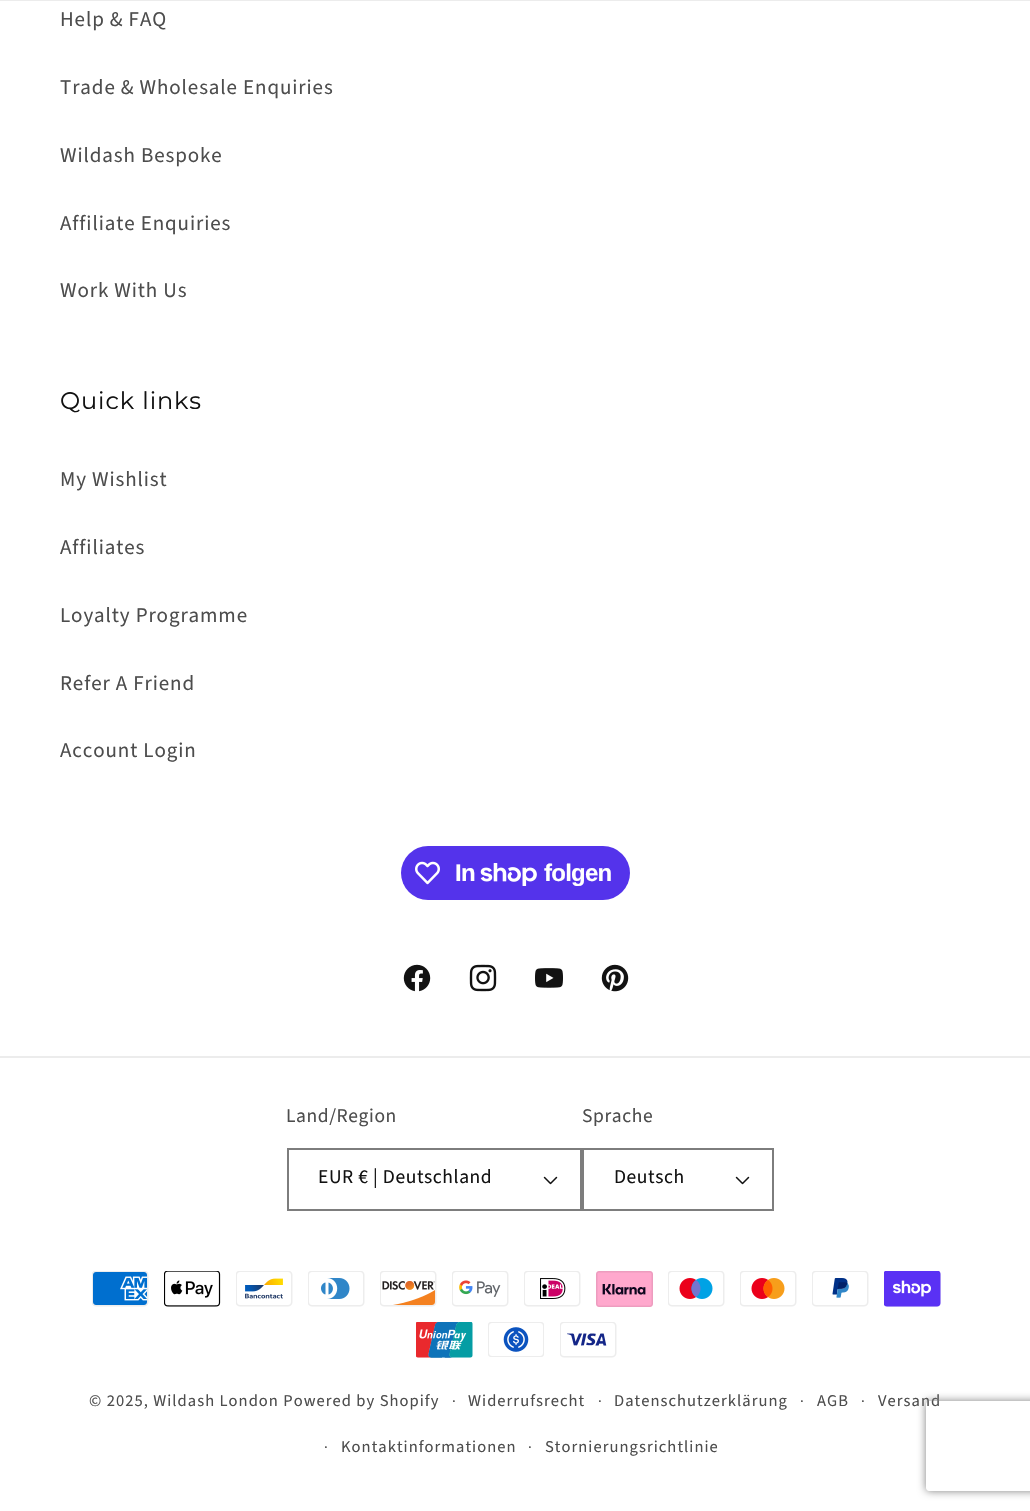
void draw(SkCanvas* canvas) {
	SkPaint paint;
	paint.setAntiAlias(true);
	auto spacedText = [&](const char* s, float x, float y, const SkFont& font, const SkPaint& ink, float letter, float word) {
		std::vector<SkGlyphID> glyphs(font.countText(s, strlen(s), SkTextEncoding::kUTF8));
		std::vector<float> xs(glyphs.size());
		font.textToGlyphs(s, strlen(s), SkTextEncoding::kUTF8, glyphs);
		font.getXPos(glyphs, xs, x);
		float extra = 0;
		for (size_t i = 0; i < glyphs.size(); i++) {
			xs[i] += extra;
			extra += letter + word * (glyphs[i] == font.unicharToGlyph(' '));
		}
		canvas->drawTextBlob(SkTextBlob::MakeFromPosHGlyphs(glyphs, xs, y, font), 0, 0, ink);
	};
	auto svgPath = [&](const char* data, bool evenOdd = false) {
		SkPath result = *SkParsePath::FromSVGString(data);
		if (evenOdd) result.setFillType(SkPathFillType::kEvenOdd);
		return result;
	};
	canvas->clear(0xffffffff);
	paint.setColor(0xffececec);
	canvas->drawRect(SkRect::MakeXYWH(0, 0, 1030, 1), paint);
	SkFont f1(fontMgr->matchFamilyStyle("Source Sans Pro", SkFontStyle::Normal()), 21);
	f1.setSubpixel(true);
	paint.setColor(0xff4d4d4d);
	spacedText("Help & FAQ", 60, 26, f1, paint, 0.9, 0);
	spacedText("Trade & Wholesale Enquiries", 60, 94, f1, paint, 0.9, 0);
	spacedText("Wildash Bespoke", 60, 162, f1, paint, 0.9, 0);
	spacedText("Affiliate Enquiries", 60, 230, f1, paint, 0.9, 0);
	spacedText("Work With Us", 60, 297, f1, paint, 0.9, 0);
	SkFont f2(fontMgr->matchFamilyStyle("Montserrat", SkFontStyle::Normal()), 24);
	f2.setSubpixel(true);
	paint.setColor(0xff121212);
	spacedText("Quick links", 60, 409, f2, paint, 0.9, 0);
	paint.setColor(0xff4d4d4d);
	spacedText("My Wishlist", 60, 486, f1, paint, 0.9, 0);
	spacedText("Affiliates", 60, 554, f1, paint, 0.9, 0);
	spacedText("Loyalty Programme", 60, 622, f1, paint, 0.9, 0);
	spacedText("Refer A Friend", 60, 690, f1, paint, 0.9, 0);
	spacedText("Account Login", 60, 757, f1, paint, 0.9, 0);
	paint.setColor(0xff5433eb);
	canvas->drawRoundRect(SkRect::MakeXYWH(401, 846, 229, 54), 27, 27, paint);
	canvas->drawImageRect(SkImages::DeferredFromEncodedData(SkData::MakeFromFileName("img1.png")), SkRect::MakeXYWH(415, 861, 25, 24), SkSamplingOptions());
	SkFont f3(fontMgr->matchFamilyStyle("Liberation Sans", SkFontStyle::Bold()), 24);
	f3.setSubpixel(true);
	paint.setColor(0xffffffff);
	spacedText("In", 455, 881, f3, paint, -0.75, 0);
	canvas->drawImageRect(SkImages::DeferredFromEncodedData(SkData::MakeFromFileName("img2.png")), SkRect::MakeXYWH(480, 863, 57, 23), SkSamplingOptions());
	spacedText("folgen", 544, 881, f3, paint, -0.75, 0);
	canvas->drawImageRect(SkImages::DeferredFromEncodedData(SkData::MakeFromFileName("img3.png")), SkRect::MakeXYWH(403, 964, 28, 28), SkSamplingOptions());
	canvas->drawImageRect(SkImages::DeferredFromEncodedData(SkData::MakeFromFileName("img4.png")), SkRect::MakeXYWH(469, 964, 28, 28), SkSamplingOptions());
	canvas->drawImageRect(SkImages::DeferredFromEncodedData(SkData::MakeFromFileName("img5.png")), SkRect::MakeXYWH(535, 968, 28, 20), SkSamplingOptions());
	canvas->drawImageRect(SkImages::DeferredFromEncodedData(SkData::MakeFromFileName("img6.png")), SkRect::MakeXYWH(601, 964, 28, 28), SkSamplingOptions());
	paint.setColor(0xffececec);
	canvas->drawRect(SkRect::MakeXYWH(0, 1056, 1030, 2), paint);
	SkFont f4(fontMgr->matchFamilyStyle("Source Sans Pro", SkFontStyle::Normal()), 19.5);
	f4.setSubpixel(true);
	paint.setColor(0xff4d4d4d);
	spacedText("Land/Region", 286, 1122, f4, paint, 0.6, 0);
	canvas->drawImageRect(SkImages::DeferredFromEncodedData(SkData::MakeFromFileName("img7.png")), SkRect::MakeXYWH(543, 1176, 15, 9), SkSamplingOptions());
	paint.setStroke(true);
	paint.setStrokeWidth(2);
	paint.setColor(0xff7d7d7d);
	canvas->drawRect(SkRect::MakeXYWH(288, 1149, 293, 61), paint);
	paint.setStroke(false);
	paint.setColor(0xff121212);
	spacedText("EUR € | Deutschland", 318, 1183, f4, paint, 0.6, 0);
	paint.setColor(0xff4d4d4d);
	spacedText("Sprache", 582, 1122, f4, paint, 0.6, 0);
	canvas->drawImageRect(SkImages::DeferredFromEncodedData(SkData::MakeFromFileName("img7.png")), SkRect::MakeXYWH(735, 1176, 15, 9), SkSamplingOptions());
	paint.setStroke(true);
	paint.setColor(0xff7d7d7d);
	canvas->drawRect(SkRect::MakeXYWH(583, 1149, 190, 61), paint);
	paint.setStroke(false);
	paint.setColor(0xff121212);
	spacedText("Deutsch", 614, 1183, f4, paint, 0.6, 0);
	canvas->drawImageRect(SkImages::DeferredFromEncodedData(SkData::MakeFromFileName("img8.png")), SkRect::MakeXYWH(92, 1271, 57, 36), SkSamplingOptions());
	canvas->drawImageRect(SkImages::DeferredFromEncodedData(SkData::MakeFromFileName("img9.png")), SkRect::MakeXYWH(164, 1271, 57, 36), SkSamplingOptions());
	canvas->drawImageRect(SkImages::DeferredFromEncodedData(SkData::MakeFromFileName("img10.png")), SkRect::MakeXYWH(236, 1271, 57, 36), SkSamplingOptions());
	canvas->drawImageRect(SkImages::DeferredFromEncodedData(SkData::MakeFromFileName("img11.png")), SkRect::MakeXYWH(308, 1271, 57, 36), SkSamplingOptions());
	canvas->drawImageRect(SkImages::DeferredFromEncodedData(SkData::MakeFromFileName("img12.png")), SkRect::MakeXYWH(380, 1271, 57, 36), SkSamplingOptions());
	canvas->drawImageRect(SkImages::DeferredFromEncodedData(SkData::MakeFromFileName("img13.png")), SkRect::MakeXYWH(452, 1271, 57, 36), SkSamplingOptions());
	canvas->drawImageRect(SkImages::DeferredFromEncodedData(SkData::MakeFromFileName("img14.png")), SkRect::MakeXYWH(524, 1271, 57, 36), SkSamplingOptions());
	canvas->drawImageRect(SkImages::DeferredFromEncodedData(SkData::MakeFromFileName("img15.png")), SkRect::MakeXYWH(596, 1271, 57, 36), SkSamplingOptions());
	canvas->drawImageRect(SkImages::DeferredFromEncodedData(SkData::MakeFromFileName("img16.png")), SkRect::MakeXYWH(668, 1271, 57, 36), SkSamplingOptions());
	canvas->drawImageRect(SkImages::DeferredFromEncodedData(SkData::MakeFromFileName("img17.png")), SkRect::MakeXYWH(740, 1271, 57, 36), SkSamplingOptions());
	canvas->drawImageRect(SkImages::DeferredFromEncodedData(SkData::MakeFromFileName("img18.png")), SkRect::MakeXYWH(812, 1271, 57, 36), SkSamplingOptions());
	canvas->drawImageRect(SkImages::DeferredFromEncodedData(SkData::MakeFromFileName("img19.png")), SkRect::MakeXYWH(884, 1271, 57, 36), SkSamplingOptions());
	canvas->drawImageRect(SkImages::DeferredFromEncodedData(SkData::MakeFromFileName("img20.png")), SkRect::MakeXYWH(416, 1322, 57, 36), SkSamplingOptions());
	canvas->drawImageRect(SkImages::DeferredFromEncodedData(SkData::MakeFromFileName("img21.png")), SkRect::MakeXYWH(488, 1322, 56, 35), SkSamplingOptions());
	canvas->drawImageRect(SkImages::DeferredFromEncodedData(SkData::MakeFromFileName("img22.png")), SkRect::MakeXYWH(560, 1322, 57, 36), SkSamplingOptions());
	SkFont f5(fontMgr->matchFamilyStyle("Source Sans Pro", SkFontStyle::Normal()), 16.5);
	f5.setSubpixel(true);
	paint.setColor(0xff4d4d4d);
	spacedText("© 2025, Wildash London Powered by Shopify", 89, 1406, f5, paint, 1.05, 0);
	SkFont f6(fontMgr->matchFamilyStyle("Source Sans Pro", SkFontStyle::Normal()), 15);
	f6.setSubpixel(true);
	spacedText("·", 452, 1406, f6, paint, 1.05, 0);
	spacedText("Widerrufsrecht", 468, 1406, f5, paint, 1.05, 0);
	spacedText("·", 598, 1406, f6, paint, 1.05, 0);
	spacedText("Datenschutzerklärung", 614, 1406, f5, paint, 1.05, 0);
	spacedText("·", 800, 1406, f6, paint, 1.05, 0);
	spacedText("AGB", 817, 1406, f5, paint, 1.05, 0);
	spacedText("·", 861, 1406, f6, paint, 1.05, 0);
	spacedText("Versand", 878, 1406, f5, paint, 1.05, 0);
	spacedText("·", 324, 1452, f6, paint, 1.05, 0);
	spacedText("Kontaktinformationen", 341, 1452, f5, paint, 1.05, 0);
	spacedText("·", 528, 1452, f6, paint, 1.05, 0);
	spacedText("Stornierungsrichtlinie", 545, 1452, f5, paint, 1.05, 0);
	canvas->save();
	canvas->clipPath(svgPath("M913 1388H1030V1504H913ZM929 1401H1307C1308.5 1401 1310 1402.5 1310 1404V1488C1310 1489.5 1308.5 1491 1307 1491H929C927.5 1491 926 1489.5 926 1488V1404C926 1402.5 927.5 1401 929 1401Z", true), true);
	paint.setColor(0xff808080);
	paint.setMaskFilter(SkMaskFilter::MakeBlur(kNormal_SkBlurStyle, 4));
	canvas->drawRoundRect(SkRect::MakeXYWH(926, 1401, 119, 90), 3, 3, paint);
	paint.setMaskFilter(nullptr);
	canvas->restore();
}
